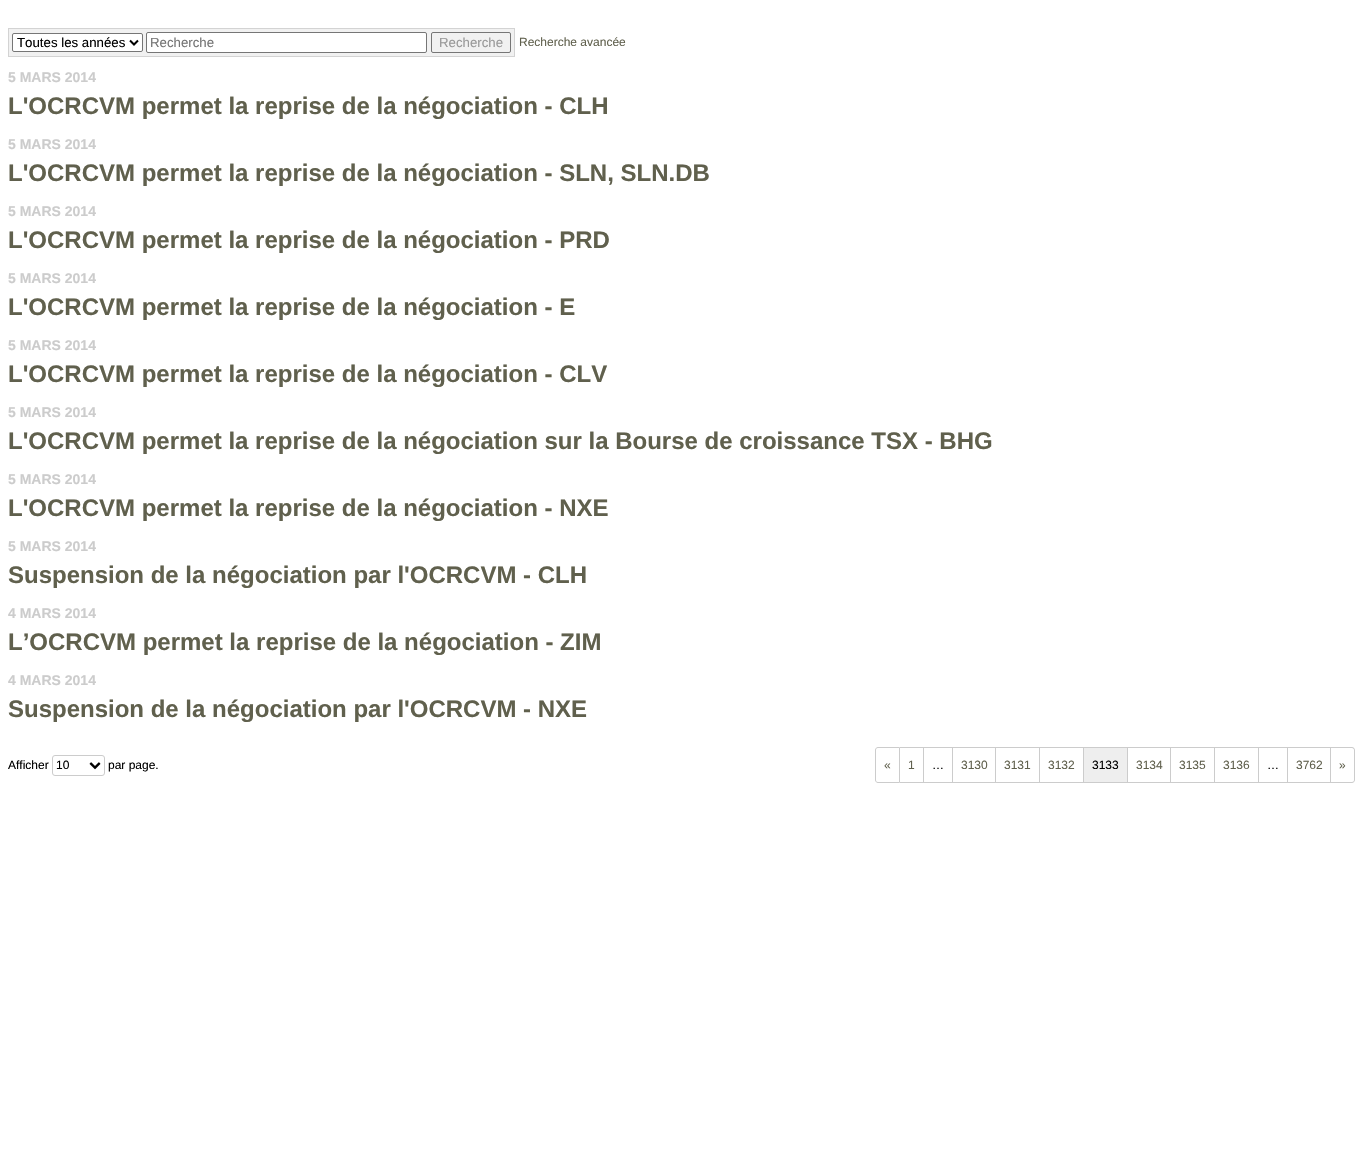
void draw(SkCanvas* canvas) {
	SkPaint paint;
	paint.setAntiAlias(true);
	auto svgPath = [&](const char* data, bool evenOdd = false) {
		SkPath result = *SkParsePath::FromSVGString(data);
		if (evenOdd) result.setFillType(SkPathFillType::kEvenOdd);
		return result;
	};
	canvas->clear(0xffffffff);
	paint.setColor(0xfff1f1f1);
	canvas->drawRect(SkRect::MakeXYWH(8.5, 28.5, 506, 28), paint);
	paint.setStroke(true);
	paint.setStrokeWidth(1);
	paint.setColor(0xffd3d3d3);
	canvas->drawRect(SkRect::MakeXYWH(8.5, 28.5, 506, 28), paint);
	paint.setStroke(false);
	paint.setColor(0xffffffff);
	canvas->drawRoundRect(SkRect::MakeXYWH(12.5, 33.5, 130, 18), 1.5, 1.5, paint);
	paint.setStroke(true);
	paint.setColor(0xff767676);
	canvas->drawRoundRect(SkRect::MakeXYWH(12.5, 33.5, 130, 18), 1.5, 1.5, paint);
	paint.setStrokeWidth(2);
	paint.setColor(0xff000000);
	canvas->drawPath(svgPath("M130 40.5L134 44.5L138 40.5"), paint);
	SkFont f1(fontMgr->matchFamilyStyle("Liberation Sans", SkFontStyle::Normal()), 13.25);
	f1.setSubpixel(true);
	paint.setStroke(false);
	canvas->drawString("Toutes les années", 17, 47, f1, paint);
	paint.setColor(0xffffffff);
	canvas->drawRoundRect(SkRect::MakeXYWH(146.5, 32.5, 280, 20), 1.5, 1.5, paint);
	paint.setStroke(true);
	paint.setStrokeWidth(1);
	paint.setColor(0xff767676);
	canvas->drawRoundRect(SkRect::MakeXYWH(146.5, 32.5, 280, 20), 1.5, 1.5, paint);
	paint.setStroke(false);
	paint.setColor(0xff757575);
	canvas->drawString("Recherche", 150, 47, f1, paint);
	paint.setStroke(true);
	paint.setColor(0xff767676);
	canvas->drawRoundRect(SkRect::MakeXYWH(431.5, 32.5, 79, 20), 1.5, 1.5, paint);
	paint.setStroke(false);
	paint.setColor(0xff999999);
	canvas->drawString("Recherche", 439, 47, f1, paint);
	SkFont f2(fontMgr->matchFamilyStyle("Liberation Sans", SkFontStyle::Normal()), 12);
	f2.setSubpixel(true);
	paint.setColor(0xff60604d);
	canvas->drawString("Recherche avancée", 519, 46, f2, paint);
	SkFont f3(fontMgr->matchFamilyStyle("Liberation Sans", SkFontStyle::Bold()), 14);
	f3.setSubpixel(true);
	paint.setColor(0xffcccccc);
	canvas->drawString("5 MARS 2014", 8, 82, f3, paint);
	SkFont f4(fontMgr->matchFamilyStyle("Liberation Sans", SkFontStyle::Bold()), 24);
	f4.setSubpixel(true);
	paint.setColor(0xff60604d);
	canvas->drawString("L'OCRCVM permet la reprise de la négociation - CLH", 8, 114, f4, paint);
	paint.setColor(0xffcccccc);
	canvas->drawString("5 MARS 2014", 8, 149, f3, paint);
	paint.setColor(0xff60604d);
	canvas->drawString("L'OCRCVM permet la reprise de la négociation - SLN, SLN.DB", 8, 181, f4, paint);
	paint.setColor(0xffcccccc);
	canvas->drawString("5 MARS 2014", 8, 216, f3, paint);
	paint.setColor(0xff60604d);
	canvas->drawString("L'OCRCVM permet la reprise de la négociation - PRD", 8, 248, f4, paint);
	paint.setColor(0xffcccccc);
	canvas->drawString("5 MARS 2014", 8, 283, f3, paint);
	paint.setColor(0xff60604d);
	canvas->drawString("L'OCRCVM permet la reprise de la négociation - E", 8, 315, f4, paint);
	paint.setColor(0xffcccccc);
	canvas->drawString("5 MARS 2014", 8, 350, f3, paint);
	paint.setColor(0xff60604d);
	canvas->drawString("L'OCRCVM permet la reprise de la négociation - CLV", 8, 382, f4, paint);
	paint.setColor(0xffcccccc);
	canvas->drawString("5 MARS 2014", 8, 417, f3, paint);
	paint.setColor(0xff60604d);
	canvas->drawString("L'OCRCVM permet la reprise de la négociation sur la Bourse de croissance TSX - BHG", 8, 449, f4, paint);
	paint.setColor(0xffcccccc);
	canvas->drawString("5 MARS 2014", 8, 484, f3, paint);
	paint.setColor(0xff60604d);
	canvas->drawString("L'OCRCVM permet la reprise de la négociation - NXE", 8, 516, f4, paint);
	paint.setColor(0xffcccccc);
	canvas->drawString("5 MARS 2014", 8, 551, f3, paint);
	paint.setColor(0xff60604d);
	canvas->drawString("Suspension de la négociation par l'OCRCVM - CLH", 8, 583, f4, paint);
	paint.setColor(0xffcccccc);
	canvas->drawString("4 MARS 2014", 8, 618, f3, paint);
	paint.setColor(0xff60604d);
	canvas->drawString("L’OCRCVM permet la reprise de la négociation - ZIM", 8, 650, f4, paint);
	paint.setColor(0xffcccccc);
	canvas->drawString("4 MARS 2014", 8, 685, f3, paint);
	paint.setColor(0xff60604d);
	canvas->drawString("Suspension de la négociation par l'OCRCVM - NXE", 8, 717, f4, paint);
	paint.setColor(0xff000000);
	canvas->drawString("Afficher", 8, 769, f2, paint);
	paint.setStroke(true);
	paint.setColor(0xffcccccc);
	canvas->drawRoundRect(SkRect::MakeXYWH(52.5, 755.5, 52, 20), 2.5, 2.5, paint);
	paint.setStroke(false);
	paint.setColor(0xff000000);
	canvas->drawString("10", 56, 769, f2, paint);
	canvas->drawImageRect(SkImages::DeferredFromEncodedData(SkData::MakeFromFileName("img1.png")), SkRect::MakeXYWH(89, 762, 12, 8), SkSamplingOptions());
	canvas->drawString("par page.", 108, 769, f2, paint);
	paint.setStroke(true);
	paint.setColor(0xffcccccc);
	canvas->drawPath(svgPath("M878 747.5H899.5V782.5H878C876.5 782.5 875.5 781.5 875.5 780V750C875.5 748.5 876.5 747.5 878 747.5Z"), paint);
	paint.setStroke(false);
	paint.setColor(0xff60604d);
	canvas->drawString("«", 884, 769, f2, paint);
	paint.setColor(0xffcccccc);
	canvas->drawRect(SkRect::MakeXYWH(900, 747, 431, 1), paint);
	canvas->drawRect(SkRect::MakeXYWH(923, 747, 1, 36), paint);
	canvas->drawRect(SkRect::MakeXYWH(900, 782, 24, 1), paint);
	paint.setColor(0xff60604d);
	canvas->drawString("1", 908, 769, f2, paint);
	paint.setColor(0xffcccccc);
	canvas->drawRect(SkRect::MakeXYWH(952, 747, 1, 36), paint);
	canvas->drawRect(SkRect::MakeXYWH(924, 782, 29, 1), paint);
	paint.setColor(0xff000000);
	canvas->drawString("…", 932, 769, f2, paint);
	paint.setColor(0xffcccccc);
	canvas->drawRect(SkRect::MakeXYWH(995, 747, 1, 36), paint);
	canvas->drawRect(SkRect::MakeXYWH(953, 782, 43, 1), paint);
	paint.setColor(0xff60604d);
	canvas->drawString("3130", 961, 769, f2, paint);
	paint.setColor(0xffcccccc);
	canvas->drawRect(SkRect::MakeXYWH(1039, 747, 1, 36), paint);
	canvas->drawRect(SkRect::MakeXYWH(996, 782, 44, 1), paint);
	paint.setColor(0xff60604d);
	canvas->drawString("3131", 1004, 769, f2, paint);
	paint.setColor(0xffcccccc);
	canvas->drawRect(SkRect::MakeXYWH(1083, 747, 1, 36), paint);
	canvas->drawRect(SkRect::MakeXYWH(1040, 782, 44, 1), paint);
	paint.setColor(0xff60604d);
	canvas->drawString("3132", 1048, 769, f2, paint);
	paint.setColor(0xffeeeeee);
	canvas->drawRect(SkRect::MakeXYWH(1084, 748, 43, 34), paint);
	paint.setColor(0xffcccccc);
	canvas->drawRect(SkRect::MakeXYWH(1127, 747, 1, 36), paint);
	canvas->drawRect(SkRect::MakeXYWH(1084, 782, 44, 1), paint);
	paint.setColor(0xff000000);
	canvas->drawString("3133", 1092, 769, f2, paint);
	paint.setColor(0xffcccccc);
	canvas->drawRect(SkRect::MakeXYWH(1170, 747, 1, 36), paint);
	canvas->drawRect(SkRect::MakeXYWH(1128, 782, 43, 1), paint);
	paint.setColor(0xff60604d);
	canvas->drawString("3134", 1136, 769, f2, paint);
	paint.setColor(0xffcccccc);
	canvas->drawRect(SkRect::MakeXYWH(1214, 747, 1, 36), paint);
	canvas->drawRect(SkRect::MakeXYWH(1171, 782, 44, 1), paint);
	paint.setColor(0xff60604d);
	canvas->drawString("3135", 1179, 769, f2, paint);
	paint.setColor(0xffcccccc);
	canvas->drawRect(SkRect::MakeXYWH(1258, 747, 1, 36), paint);
	canvas->drawRect(SkRect::MakeXYWH(1215, 782, 44, 1), paint);
	paint.setColor(0xff60604d);
	canvas->drawString("3136", 1223, 769, f2, paint);
	paint.setColor(0xffcccccc);
	canvas->drawRect(SkRect::MakeXYWH(1287, 747, 1, 36), paint);
	canvas->drawRect(SkRect::MakeXYWH(1259, 782, 29, 1), paint);
	paint.setColor(0xff000000);
	canvas->drawString("…", 1267, 769, f2, paint);
	paint.setColor(0xffcccccc);
	canvas->drawRect(SkRect::MakeXYWH(1330, 747, 1, 36), paint);
	canvas->drawRect(SkRect::MakeXYWH(1288, 782, 43, 1), paint);
	paint.setColor(0xff60604d);
	canvas->drawString("3762", 1296, 769, f2, paint);
	paint.setColor(0xffcccccc);
	canvas->drawPath(svgPath("M1331 747H1352C1353.5 747 1355 748.5 1355 750V780C1355 781.5 1353.5 783 1352 783H1331ZM1331 748H1352C1353 748 1354 749 1354 750V780C1354 781 1353 782 1352 782H1331Z", true), paint);
	paint.setColor(0xff60604d);
	canvas->drawString("»", 1339, 769, f2, paint);
}
